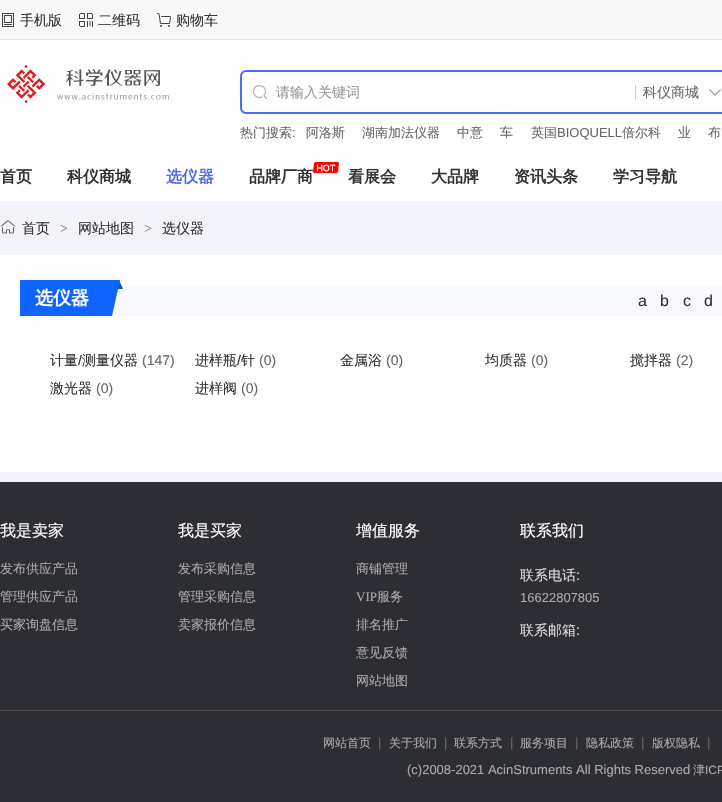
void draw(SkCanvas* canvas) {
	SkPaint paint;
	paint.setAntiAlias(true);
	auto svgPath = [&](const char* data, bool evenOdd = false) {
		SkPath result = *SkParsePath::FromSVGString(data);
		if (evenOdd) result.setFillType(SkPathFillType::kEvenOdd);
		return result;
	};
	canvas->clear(0xfff2f4fa);
	paint.setColor(0xffffffff);
	canvas->drawRect(SkRect::MakeXYWH(0, 40, 722, 161), paint);
	paint.setColor(0xfff8f8f8);
	canvas->drawRect(SkRect::MakeXYWH(0, 0, 722, 39), paint);
	paint.setColor(0xffe5e5e5);
	canvas->drawRect(SkRect::MakeXYWH(0, 39, 722, 1), paint);
	canvas->drawImageRect(SkImages::DeferredFromEncodedData(SkData::MakeFromFileName("img1.png")), SkRect::MakeXYWH(2, 13, 12, 14), SkSamplingOptions());
	SkFont f1(fontMgr->matchFamilyStyle("WenQuanYi Zen Hei", SkFontStyle(500, SkFontStyle::kNormal_Width, SkFontStyle::kUpright_Slant)), 14);
	f1.setSubpixel(true);
	paint.setColor(0xff333333);
	canvas->drawString("手机版", 20, 25, f1, paint);
	canvas->drawImageRect(SkImages::DeferredFromEncodedData(SkData::MakeFromFileName("img2.png")), SkRect::MakeXYWH(79, 13, 14, 14), SkSamplingOptions());
	canvas->drawString("二维码", 98, 25, f1, paint);
	canvas->drawImageRect(SkImages::DeferredFromEncodedData(SkData::MakeFromFileName("img3.png")), SkRect::MakeXYWH(157, 13, 14, 14), SkSamplingOptions());
	canvas->drawString("购物车", 176, 25, f1, paint);
	canvas->drawImageRect(SkImages::DeferredFromEncodedData(SkData::MakeFromFileName("img4.png")), SkRect::MakeXYWH(7, 65, 162, 38), SkSamplingOptions());
	paint.setColor(0xff4e6ef2);
	canvas->drawPath(svgPath("M246 70H618V114H246C243 114 240 111 240 108V76C240 73 243 70 246 70ZM246 72H618V112H246C244 112 242 110 242 108V76C242 74 244 72 246 72Z", true), paint);
	canvas->drawImageRect(SkImages::DeferredFromEncodedData(SkData::MakeFromFileName("img5.png")), SkRect::MakeXYWH(253, 85, 14, 14), SkSamplingOptions());
	paint.setColor(0xff999999);
	canvas->drawString("请输入关键词", 276, 97, f1, paint);
	paint.setColor(0xff4e6ef2);
	canvas->drawRect(SkRect::MakeXYWH(618, 70, 104, 2), paint);
	canvas->drawRect(SkRect::MakeXYWH(618, 112, 104, 2), paint);
	canvas->drawImageRect(SkImages::DeferredFromEncodedData(SkData::MakeFromFileName("img6.png")), SkRect::MakeXYWH(709, 89, 12, 7), SkSamplingOptions());
	paint.setColor(0xff666666);
	canvas->drawString("科仪商城", 643, 97, f1, paint);
	paint.setColor(0xffd2d2d2);
	canvas->drawRect(SkRect::MakeXYWH(635, 85, 1, 15), paint);
	SkFont f2(fontMgr->matchFamilyStyle("WenQuanYi Zen Hei", SkFontStyle(500, SkFontStyle::kNormal_Width, SkFontStyle::kUpright_Slant)), 13);
	f2.setSubpixel(true);
	paint.setColor(0xff666666);
	canvas->drawString("热门搜索", 240, 137, f2, paint);
	SkFont f3(fontMgr->matchFamilyStyle("Liberation Sans", SkFontStyle::Normal()), 13);
	f3.setSubpixel(true);
	canvas->drawString(":", 292, 137, f3, paint);
	canvas->drawString("阿洛斯", 306, 137, f2, paint);
	canvas->drawString("湖南加法仪器", 362, 137, f2, paint);
	canvas->drawString("中意", 457, 137, f2, paint);
	canvas->drawString("车", 500, 137, f2, paint);
	canvas->drawString("英国", 531, 137, f2, paint);
	canvas->drawString("BIOQUELL", 557, 137, f3, paint);
	canvas->drawString("倍尔科", 622, 137, f2, paint);
	canvas->drawString("业", 678, 137, f2, paint);
	canvas->drawString("布", 708, 137, f2, paint);
	SkFont f4(fontMgr->matchFamilyStyle("WenQuanYi Zen Hei", SkFontStyle::Bold()), 16);
	f4.setSubpixel(true);
	paint.setColor(0xff333333);
	canvas->drawString("首页", 0, 182, f4, paint);
	canvas->drawString("科仪商城", 67, 182, f4, paint);
	paint.setColor(0xff4e6ef2);
	canvas->drawString("选仪器", 166, 182, f4, paint);
	paint.setColor(0xff333333);
	canvas->drawString("品牌厂商", 249, 182, f4, paint);
	canvas->drawImageRect(SkImages::DeferredFromEncodedData(SkData::MakeFromFileName("img7.png")), SkRect::MakeXYWH(313, 162, 26, 11), SkSamplingOptions());
	canvas->drawString("看展会", 348, 182, f4, paint);
	canvas->drawString("大品牌", 431, 182, f4, paint);
	canvas->drawString("资讯头条", 514, 182, f4, paint);
	canvas->drawString("学习导航", 613, 182, f4, paint);
	canvas->drawImageRect(SkImages::DeferredFromEncodedData(SkData::MakeFromFileName("img8.png")), SkRect::MakeXYWH(1, 220, 14, 14), SkSamplingOptions());
	canvas->drawString("首页", 22, 233, f1, paint);
	SkFont f5(fontMgr->matchFamilyStyle("Liberation Serif", SkFontStyle::Bold()), 14);
	f5.setSubpixel(true);
	paint.setColor(0xff8f8f8f);
	canvas->drawString(">", 60, 233, f5, paint);
	paint.setColor(0xff333333);
	canvas->drawString("网站地图", 78, 233, f1, paint);
	paint.setColor(0xff8f8f8f);
	canvas->drawString(">", 144, 233, f5, paint);
	paint.setColor(0xff333333);
	canvas->drawString("选仪器", 162, 233, f1, paint);
	paint.setColor(0xffffffff);
	canvas->drawRect(SkRect::MakeXYWH(0, 255, 722, 217), paint);
	paint.setColor(0xff1064ff);
	canvas->drawRect(SkRect::MakeXYWH(20, 280, 91, 36), paint);
	SkFont f6(fontMgr->matchFamilyStyle("WenQuanYi Zen Hei", SkFontStyle::Bold()), 18);
	f6.setSubpixel(true);
	paint.setColor(0xffffffff);
	canvas->drawString("选仪器", 35, 304, f6, paint);
	paint.setColor(0xfff7f9fc);
	canvas->drawRect(SkRect::MakeXYWH(112, 286, 610, 30), paint);
	canvas->drawImageRect(SkImages::DeferredFromEncodedData(SkData::MakeFromFileName("img9.png")), SkRect::MakeXYWH(111, 280, 12, 36), SkSamplingOptions());
	SkFont f7(fontMgr->matchFamilyStyle("Liberation Sans", SkFontStyle::Normal()), 16);
	f7.setSubpixel(true);
	paint.setColor(0xff333333);
	canvas->drawString("a", 638, 306, f7, paint);
	canvas->drawString("b", 660, 306, f7, paint);
	canvas->drawString("c", 683, 306, f7, paint);
	canvas->drawString("d", 704, 306, f7, paint);
	canvas->drawString("计量", 50, 365, f1, paint);
	SkFont f8(fontMgr->matchFamilyStyle("Liberation Sans", SkFontStyle::Normal()), 14);
	f8.setSubpixel(true);
	canvas->drawString("/", 78, 365, f8, paint);
	canvas->drawString("测量仪器", 82, 365, f1, paint);
	paint.setColor(0xff666666);
	canvas->drawString("(147)", 142, 365, f8, paint);
	paint.setColor(0xff333333);
	canvas->drawString("进样瓶", 195, 365, f1, paint);
	canvas->drawString("/", 237, 365, f8, paint);
	canvas->drawString("针", 241, 365, f1, paint);
	paint.setColor(0xff666666);
	canvas->drawString("(0)", 259, 365, f8, paint);
	paint.setColor(0xff333333);
	canvas->drawString("金属浴", 340, 365, f1, paint);
	paint.setColor(0xff666666);
	canvas->drawString("(0)", 386, 365, f8, paint);
	paint.setColor(0xff333333);
	canvas->drawString("均质器", 485, 365, f1, paint);
	paint.setColor(0xff666666);
	canvas->drawString("(0)", 531, 365, f8, paint);
	paint.setColor(0xff333333);
	canvas->drawString("搅拌器", 630, 365, f1, paint);
	paint.setColor(0xff666666);
	canvas->drawString("(2)", 676, 365, f8, paint);
	paint.setColor(0xff333333);
	canvas->drawString("激光器", 50, 393, f1, paint);
	paint.setColor(0xff666666);
	canvas->drawString("(0)", 96, 393, f8, paint);
	paint.setColor(0xff333333);
	canvas->drawString("进样阀", 195, 393, f1, paint);
	paint.setColor(0xff666666);
	canvas->drawString("(0)", 241, 393, f8, paint);
	paint.setColor(0xff2c2e33);
	canvas->drawRect(SkRect::MakeXYWH(0, 482, 722, 320), paint);
	paint.setColor(0xff484848);
	canvas->drawRect(SkRect::MakeXYWH(0, 710, 722, 1), paint);
	SkFont f9(fontMgr->matchFamilyStyle("WenQuanYi Zen Hei", SkFontStyle(500, SkFontStyle::kNormal_Width, SkFontStyle::kUpright_Slant)), 16);
	f9.setSubpixel(true);
	paint.setColor(0xffffffff);
	canvas->drawString("我是卖家", 0, 536, f9, paint);
	paint.setColor(0xffaaaaaa);
	canvas->drawString("发布供应产品", 0, 573, f2, paint);
	canvas->drawString("管理供应产品", 0, 601, f2, paint);
	canvas->drawString("买家询盘信息", 0, 629, f2, paint);
	paint.setColor(0xffffffff);
	canvas->drawString("我是买家", 178, 536, f9, paint);
	paint.setColor(0xffaaaaaa);
	canvas->drawString("发布采购信息", 178, 573, f2, paint);
	canvas->drawString("管理采购信息", 178, 601, f2, paint);
	canvas->drawString("卖家报价信息", 178, 629, f2, paint);
	paint.setColor(0xffffffff);
	canvas->drawString("增值服务", 356, 536, f9, paint);
	paint.setColor(0xffaaaaaa);
	canvas->drawString("商铺管理", 356, 573, f2, paint);
	SkFont f10(fontMgr->matchFamilyStyle("Liberation Serif", SkFontStyle::Normal()), 13);
	f10.setSubpixel(true);
	canvas->drawString("VIP", 356, 601, f10, paint);
	canvas->drawString("服务", 377, 601, f2, paint);
	canvas->drawString("排名推广", 356, 629, f2, paint);
	canvas->drawString("意见反馈", 356, 657, f2, paint);
	canvas->drawString("网站地图", 356, 685, f2, paint);
	paint.setColor(0xffffffff);
	canvas->drawString("联系我们", 520, 536, f9, paint);
	paint.setColor(0xffdddddd);
	canvas->drawString("联系电话", 520, 580, f1, paint);
	canvas->drawString(":", 576, 580, f8, paint);
	paint.setColor(0xffaaaaaa);
	canvas->drawString("16622807805", 520, 602, f3, paint);
	paint.setColor(0xffdddddd);
	canvas->drawString("联系邮箱", 520, 635, f1, paint);
	canvas->drawString(":", 576, 635, f8, paint);
	SkFont f11(fontMgr->matchFamilyStyle("WenQuanYi Zen Hei", SkFontStyle(500, SkFontStyle::kNormal_Width, SkFontStyle::kUpright_Slant)), 12);
	f11.setSubpixel(true);
	paint.setColor(0xffaaaaaa);
	canvas->drawString("网站首页", 323, 747, f11, paint);
	paint.setColor(0xff666666);
	canvas->drawString("|", 378, 747, f3, paint);
	paint.setColor(0xffaaaaaa);
	canvas->drawString("关于我们", 389, 747, f11, paint);
	paint.setColor(0xff666666);
	canvas->drawString("|", 444, 747, f3, paint);
	paint.setColor(0xffaaaaaa);
	canvas->drawString("联系方式", 454, 747, f11, paint);
	paint.setColor(0xff666666);
	canvas->drawString("|", 510, 747, f3, paint);
	paint.setColor(0xffaaaaaa);
	canvas->drawString("服务项目", 520, 747, f11, paint);
	paint.setColor(0xff666666);
	canvas->drawString("|", 575, 747, f3, paint);
	paint.setColor(0xffaaaaaa);
	canvas->drawString("隐私政策", 586, 747, f11, paint);
	paint.setColor(0xff666666);
	canvas->drawString("|", 641, 747, f3, paint);
	paint.setColor(0xffaaaaaa);
	canvas->drawString("版权隐私", 652, 747, f11, paint);
	paint.setColor(0xff666666);
	canvas->drawString("|", 707, 747, f3, paint);
	paint.setColor(0xffaaaaaa);
	canvas->drawString("(c)2008-2021 AcinStruments All Rights Reserved", 407, 774, f3, paint);
	canvas->drawString("津", 693, 774, f11, paint);
	SkFont f12(fontMgr->matchFamilyStyle("Liberation Sans", SkFontStyle::Normal()), 12);
	f12.setSubpixel(true);
	canvas->drawString("ICP", 705, 774, f12, paint);
}
